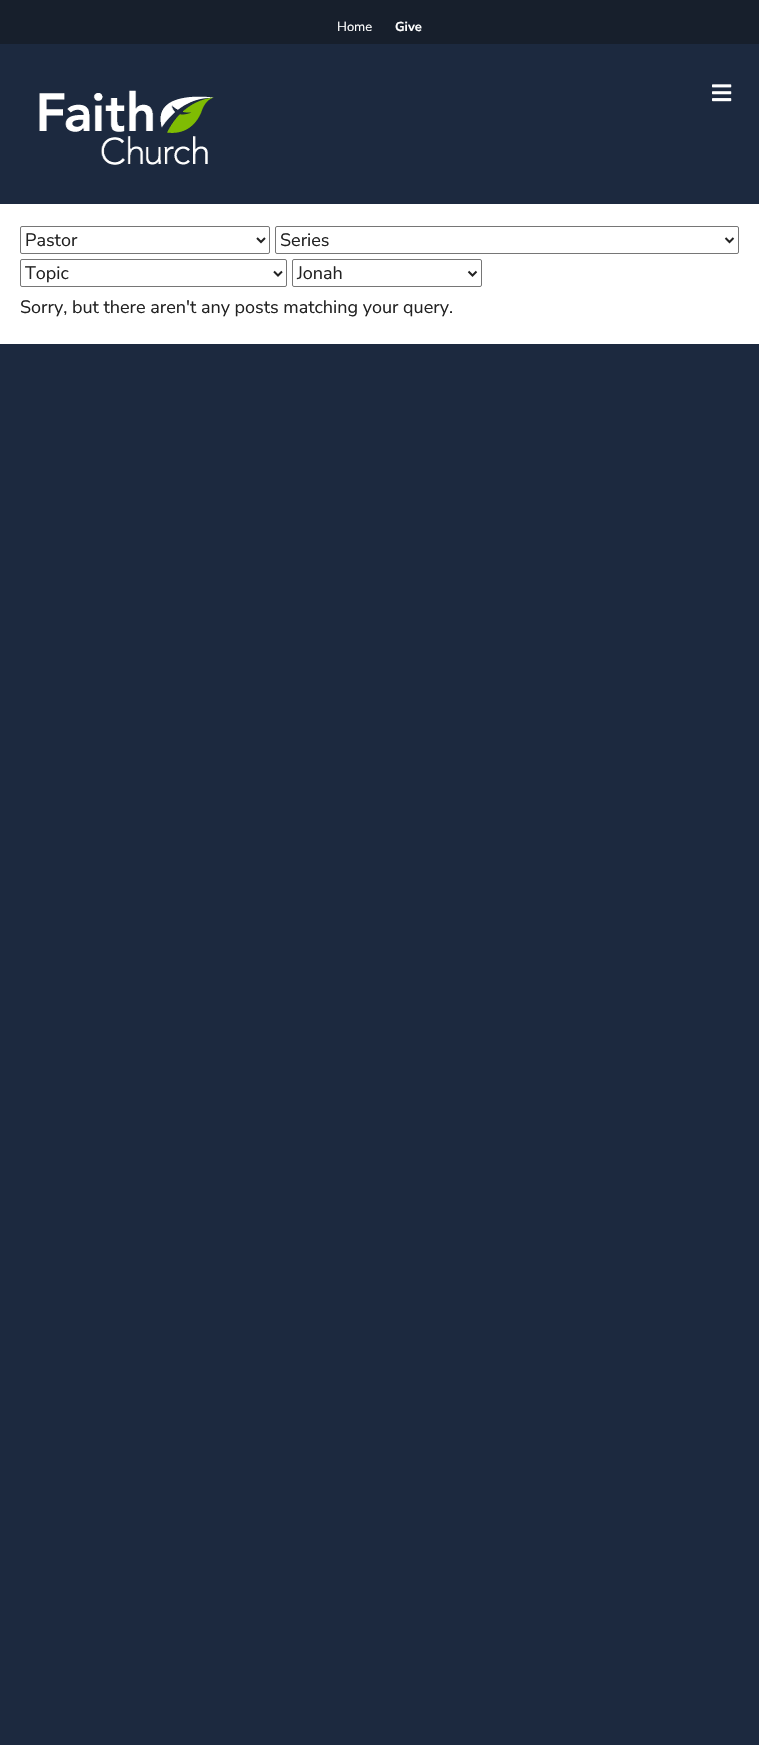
void draw(SkCanvas* canvas) {
	SkPaint paint;
	paint.setAntiAlias(true);
	auto svgPath = [&](const char* data, bool evenOdd = false) {
		SkPath result = *SkParsePath::FromSVGString(data);
		if (evenOdd) result.setFillType(SkPathFillType::kEvenOdd);
		return result;
	};
	canvas->clear(0xff1c293f);
	paint.setColor(0xff171f2c);
	canvas->drawRect(SkRect::MakeXYWH(0, 0, 759, 44), paint);
	SkFont f1(fontMgr->matchFamilyStyle("Nunito Sans", SkFontStyle::Normal()), 13);
	f1.setSubpixel(true);
	paint.setColor(0xffffffff);
	canvas->drawString("Home", 337, 31, f1, paint);
	SkFont f2(fontMgr->matchFamilyStyle("Nunito Sans", SkFontStyle::Bold()), 13);
	f2.setSubpixel(true);
	canvas->drawString("Give", 395, 31, f2, paint);
	canvas->drawImageRect(SkImages::DeferredFromEncodedData(SkData::MakeFromFileName("img1.png")), SkRect::MakeXYWH(39, 90, 175, 75), SkSamplingOptions());
	canvas->drawImageRect(SkImages::DeferredFromEncodedData(SkData::MakeFromFileName("img2.png")), SkRect::MakeXYWH(712, 84, 20, 18), SkSamplingOptions());
	canvas->drawRect(SkRect::MakeXYWH(0, 204, 759, 140), paint);
	paint.setStroke(true);
	paint.setStrokeWidth(1);
	paint.setColor(0xff767676);
	canvas->drawRoundRect(SkRect::MakeXYWH(20.5, 226.5, 249, 27), 1.5, 1.5, paint);
	paint.setStrokeWidth(2);
	paint.setColor(0xff222222);
	canvas->drawPath(svgPath("M257 238L261 242L265 238"), paint);
	SkFont f3(fontMgr->matchFamilyStyle("Nunito Sans", SkFontStyle::Normal()), 18);
	f3.setSubpixel(true);
	paint.setStroke(false);
	canvas->drawString("Pastor", 25, 246, f3, paint);
	paint.setStroke(true);
	paint.setStrokeWidth(1);
	paint.setColor(0xff767676);
	canvas->drawRoundRect(SkRect::MakeXYWH(275.5, 226.5, 463, 27), 1.5, 1.5, paint);
	paint.setStrokeWidth(2);
	paint.setColor(0xff222222);
	canvas->drawPath(svgPath("M725.5 238L729.5 242L733.5 238"), paint);
	paint.setStroke(false);
	canvas->drawString("Series", 280, 246, f3, paint);
	paint.setStroke(true);
	paint.setStrokeWidth(1);
	paint.setColor(0xff767676);
	canvas->drawRoundRect(SkRect::MakeXYWH(20.5, 259.5, 266, 27), 1.5, 1.5, paint);
	paint.setStrokeWidth(2);
	paint.setColor(0xff222222);
	canvas->drawPath(svgPath("M274 271.5L278 275.5L282 271.5"), paint);
	paint.setStroke(false);
	canvas->drawString("Topic", 25, 279, f3, paint);
	paint.setStroke(true);
	paint.setStrokeWidth(1);
	paint.setColor(0xff767676);
	canvas->drawRoundRect(SkRect::MakeXYWH(292.5, 259.5, 189, 27), 1.5, 1.5, paint);
	paint.setStrokeWidth(2);
	paint.setColor(0xff222222);
	canvas->drawPath(svgPath("M468.5 271.5L472.5 275.5L476.5 271.5"), paint);
	paint.setStroke(false);
	canvas->drawString("Jonah", 297, 279, f3, paint);
	canvas->drawString("Sorry, but there aren't any posts matching your query.", 20, 313, f3, paint);
}
